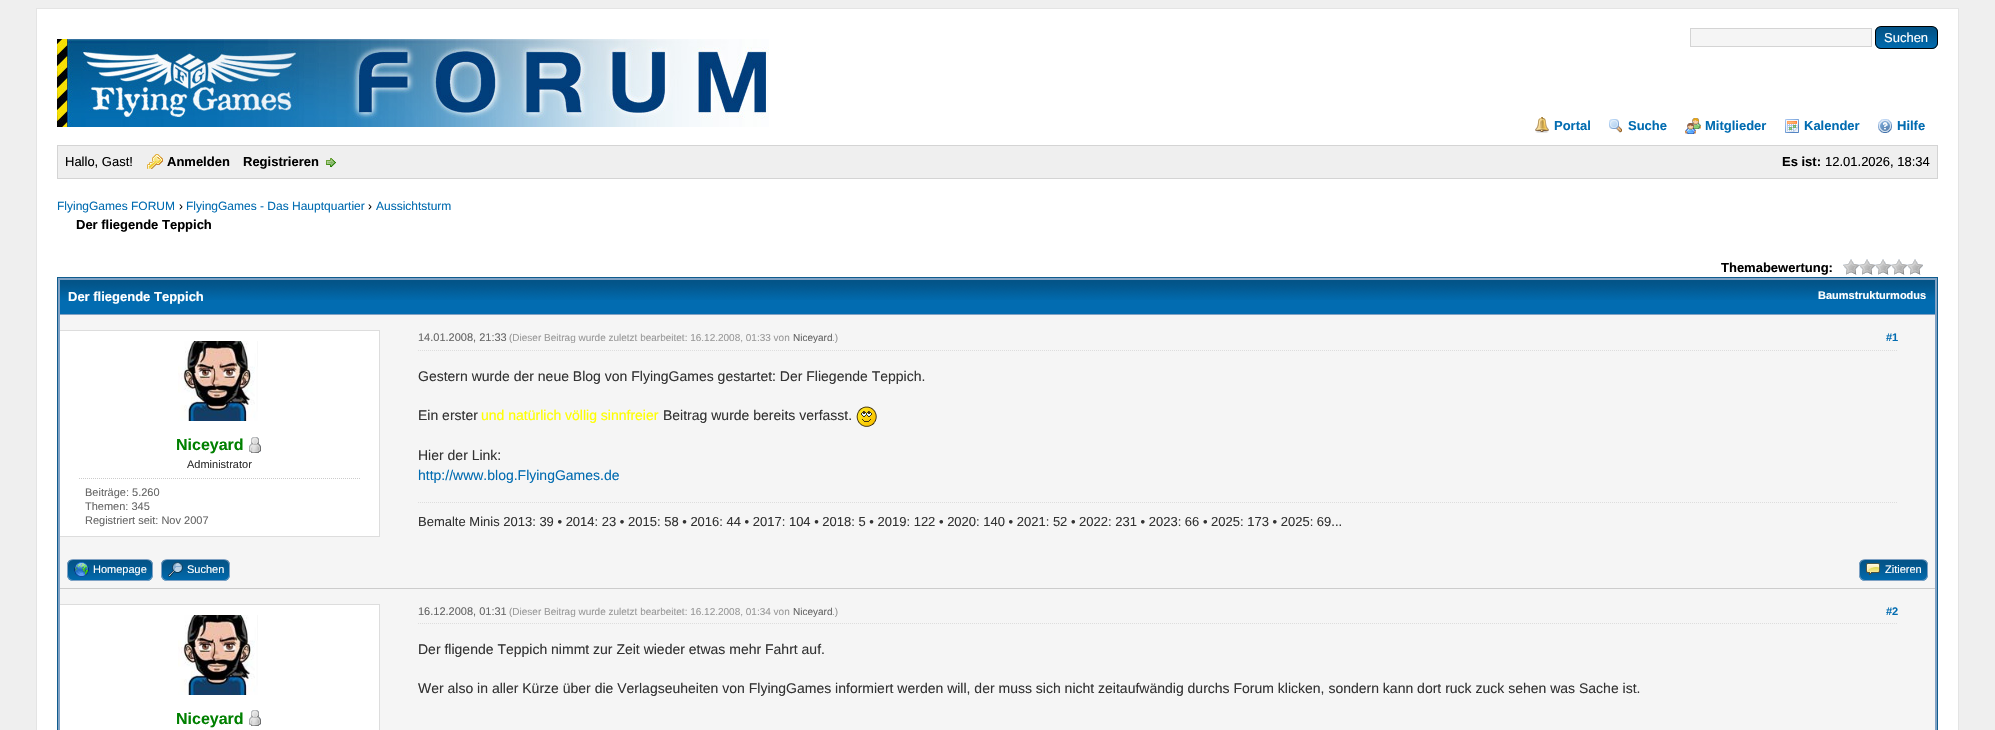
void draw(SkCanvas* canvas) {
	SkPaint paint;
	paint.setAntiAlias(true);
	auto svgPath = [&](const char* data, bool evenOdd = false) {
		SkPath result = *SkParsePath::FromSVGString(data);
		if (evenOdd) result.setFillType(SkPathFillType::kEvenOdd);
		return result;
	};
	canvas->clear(0xffefefef);
	paint.setColor(0xffffffff);
	canvas->drawRect(SkRect::MakeXYWH(36.5, 8.5, 1922, 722), paint);
	paint.setStroke(true);
	paint.setStrokeWidth(1);
	paint.setColor(0xffe4e4e4);
	canvas->drawRect(SkRect::MakeXYWH(36.5, 8.5, 1922, 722), paint);
	paint.setStroke(false);
	paint.setColor(0xfff5f5f5);
	canvas->drawRect(SkRect::MakeXYWH(1690.5, 28.5, 181, 18), paint);
	paint.setStroke(true);
	paint.setColor(0xffd4d4d4);
	canvas->drawRect(SkRect::MakeXYWH(1690.5, 28.5, 181, 18), paint);
	canvas->drawImageRect(SkImages::DeferredFromEncodedData(SkData::MakeFromFileName("img1.png")), SkRect::MakeXYWH(1875, 27, 63, 22), SkSamplingOptions());
	paint.setColor(0xff000000);
	canvas->drawRoundRect(SkRect::MakeXYWH(1875.5, 26.5, 62, 22), 5.5, 5.5, paint);
	SkFont f1(fontMgr->matchFamilyStyle("Liberation Sans", SkFontStyle::Normal()), 13);
	f1.setSubpixel(true);
	paint.setStroke(false);
	paint.setColor(0xffffffff);
	canvas->drawString("Suchen", 1884, 42, f1, paint);
	canvas->drawImageRect(SkImages::DeferredFromEncodedData(SkData::MakeFromFileName("img2.png")), SkRect::MakeXYWH(57, 39, 712, 88), SkSamplingOptions());
	canvas->drawImageRect(SkImages::DeferredFromEncodedData(SkData::MakeFromFileName("img3.png")), SkRect::MakeXYWH(1535, 117, 14, 16), SkSamplingOptions());
	SkFont f2(fontMgr->matchFamilyStyle("Liberation Sans", SkFontStyle::Bold()), 13);
	f2.setSubpixel(true);
	paint.setColor(0xff026cb1);
	canvas->drawString("Portal", 1554, 130, f2, paint);
	canvas->drawImageRect(SkImages::DeferredFromEncodedData(SkData::MakeFromFileName("img4.png")), SkRect::MakeXYWH(1609, 119, 13, 14), SkSamplingOptions());
	canvas->drawString("Suche", 1628, 130, f2, paint);
	canvas->drawImageRect(SkImages::DeferredFromEncodedData(SkData::MakeFromFileName("img5.png")), SkRect::MakeXYWH(1685, 118, 16, 16), SkSamplingOptions());
	canvas->drawString("Mitglieder", 1705, 130, f2, paint);
	canvas->drawImageRect(SkImages::DeferredFromEncodedData(SkData::MakeFromFileName("img6.png")), SkRect::MakeXYWH(1785, 119, 14, 14), SkSamplingOptions());
	canvas->drawString("Kalender", 1804, 130, f2, paint);
	canvas->drawImageRect(SkImages::DeferredFromEncodedData(SkData::MakeFromFileName("img7.png")), SkRect::MakeXYWH(1878, 119, 14, 14), SkSamplingOptions());
	canvas->drawString("Hilfe", 1897, 130, f2, paint);
	paint.setColor(0xffefefef);
	canvas->drawRect(SkRect::MakeXYWH(57.5, 145.5, 1880, 33), paint);
	paint.setStroke(true);
	paint.setColor(0xffd4d4d4);
	canvas->drawRect(SkRect::MakeXYWH(57.5, 145.5, 1880, 33), paint);
	paint.setStroke(false);
	paint.setColor(0xff000000);
	canvas->drawString("Hallo, Gast!", 65, 166, f1, paint);
	canvas->drawImageRect(SkImages::DeferredFromEncodedData(SkData::MakeFromFileName("img8.png")), SkRect::MakeXYWH(147, 154, 16, 15), SkSamplingOptions());
	canvas->drawString("Anmelden", 167, 166, f2, paint);
	canvas->drawString("Registrieren", 243, 166, f2, paint);
	canvas->drawImageRect(SkImages::DeferredFromEncodedData(SkData::MakeFromFileName("img9.png")), SkRect::MakeXYWH(326, 158, 10, 10), SkSamplingOptions());
	canvas->drawString("Es ist:", 1782, 166, f2, paint);
	canvas->drawString("12.01.2026, 18:34", 1825, 166, f1, paint);
	SkFont f3(fontMgr->matchFamilyStyle("Liberation Sans", SkFontStyle::Normal()), 12);
	f3.setSubpixel(true);
	paint.setColor(0xff026cb1);
	canvas->drawString("FlyingGames FORUM", 57, 210, f3, paint);
	paint.setColor(0xff000000);
	canvas->drawString("›", 179, 210, f3, paint);
	paint.setColor(0xff026cb1);
	canvas->drawString("FlyingGames - Das Hauptquartier", 186, 210, f3, paint);
	paint.setColor(0xff000000);
	canvas->drawString("›", 368, 210, f3, paint);
	paint.setColor(0xff026cb1);
	canvas->drawString("Aussichtsturm", 376, 210, f3, paint);
	paint.setColor(0xff000000);
	canvas->drawString("Der fliegende Teppich", 76, 229, f2, paint);
	canvas->drawString("Themabewertung:", 1721, 272, f2, paint);
	canvas->drawImageRect(SkImages::DeferredFromEncodedData(SkData::MakeFromFileName("img10.png")), SkRect::MakeXYWH(1843, 259, 80, 16), SkSamplingOptions());
	paint.setColor(0xff81a2c4);
	canvas->drawRect(SkRect::MakeXYWH(57.5, 277.5, 1880, 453), paint);
	paint.setStroke(true);
	paint.setColor(0xff0f5c8e);
	canvas->drawRect(SkRect::MakeXYWH(57.5, 277.5, 1880, 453), paint);
	paint.setStroke(false);
	paint.setColor(0xff026cb1);
	canvas->drawRect(SkRect::MakeXYWH(60, 300, 1875, 14), paint);
	canvas->drawImageRect(SkImages::DeferredFromEncodedData(SkData::MakeFromFileName("img11.png")), SkRect::MakeXYWH(60, 280, 1875, 20), SkSamplingOptions());
	paint.setColor(0xffffffff);
	canvas->drawString("Der fliegende Teppich", 68, 301, f2, paint);
	SkFont f4(fontMgr->matchFamilyStyle("Liberation Sans", SkFontStyle::Bold()), 11);
	f4.setSubpixel(true);
	canvas->drawString("Baumstrukturmodus", 1818, 299, f4, paint);
	paint.setColor(0xfff5f5f5);
	canvas->drawRect(SkRect::MakeXYWH(60, 315, 1875, 273), paint);
	paint.setColor(0xffffffff);
	canvas->drawRect(SkRect::MakeXYWH(60, 331, 319, 205), paint);
	paint.setColor(0xffdddddd);
	canvas->drawRect(SkRect::MakeXYWH(60, 330, 320, 1), paint);
	canvas->drawRect(SkRect::MakeXYWH(379, 330, 1, 207), paint);
	canvas->drawRect(SkRect::MakeXYWH(60, 536, 320, 1), paint);
	canvas->drawImageRect(SkImages::DeferredFromEncodedData(SkData::MakeFromFileName("img12.png")), SkRect::MakeXYWH(178, 341, 80, 80), SkSamplingOptions());
	SkFont f5(fontMgr->matchFamilyStyle("Liberation Sans", SkFontStyle::Bold()), 16);
	f5.setSubpixel(true);
	paint.setColor(0xff008000);
	canvas->drawString("Niceyard", 176, 450, f5, paint);
	canvas->drawImageRect(SkImages::DeferredFromEncodedData(SkData::MakeFromFileName("img13.png")), SkRect::MakeXYWH(249, 437, 12, 16), SkSamplingOptions());
	SkFont f6(fontMgr->matchFamilyStyle("Liberation Sans", SkFontStyle::Normal()), 11);
	f6.setSubpixel(true);
	paint.setColor(0xff333333);
	canvas->drawString("Administrator", 187, 468, f6, paint);
	paint.setStroke(true);
	paint.setColor(0xffcccccc);
	paint.setPathEffect(SkDashPathEffect::Make({{1, 1}}, 0));
	canvas->drawPath(svgPath("M79 478.5H360"), paint);
	paint.setPathEffect(nullptr);
	paint.setStroke(false);
	paint.setColor(0xff666666);
	canvas->drawString("Beiträge: 5.260", 85, 496, f6, paint);
	canvas->drawString("Themen: 345", 85, 510, f6, paint);
	canvas->drawString("Registriert seit: Nov 2007", 85, 524, f6, paint);
	paint.setStroke(true);
	paint.setColor(0xffdddddd);
	paint.setPathEffect(SkDashPathEffect::Make({{1, 1}}, 0));
	canvas->drawPath(svgPath("M418 350.5H1898"), paint);
	paint.setPathEffect(nullptr);
	paint.setStroke(false);
	paint.setColor(0xff666666);
	canvas->drawString("14.01.2008, 21:33", 418, 341, f6, paint);
	SkFont f7(fontMgr->matchFamilyStyle("Liberation Sans", SkFontStyle::Normal()), 10);
	f7.setSubpixel(true);
	paint.setColor(0xff999999);
	canvas->drawString("(Dieser Beitrag wurde zuletzt bearbeitet: 16.12.2008, 01:33 von", 509, 341, f7, paint);
	paint.setColor(0xff666666);
	canvas->drawString("Niceyard", 793, 341, f7, paint);
	paint.setColor(0xff999999);
	canvas->drawString(".)", 832, 341, f7, paint);
	paint.setColor(0xff026cb1);
	canvas->drawString("#1", 1886, 341, f4, paint);
	SkFont f8(fontMgr->matchFamilyStyle("Liberation Sans", SkFontStyle::Normal()), 14);
	f8.setSubpixel(true);
	paint.setColor(0xff333333);
	canvas->drawString("Gestern wurde der neue Blog von FlyingGames gestartet: Der Fliegende Teppich.", 418, 381, f8, paint);
	canvas->drawString("Ein erster", 418, 420, f8, paint);
	paint.setColor(0xffffff00);
	canvas->drawString("und natürlich völlig sinnfreier", 481, 420, f8, paint);
	paint.setColor(0xff333333);
	canvas->drawString("Beitrag wurde bereits verfasst.", 663, 420, f8, paint);
	canvas->drawImageRect(SkImages::DeferredFromEncodedData(SkData::MakeFromFileName("img14.png")), SkRect::MakeXYWH(856, 406, 21, 21), SkSamplingOptions());
	canvas->drawString("Hier der Link:", 418, 460, f8, paint);
	paint.setColor(0xff026cb1);
	canvas->drawString("http://www.blog.FlyingGames.de", 418, 480, f8, paint);
	paint.setStroke(true);
	paint.setColor(0xffdddddd);
	paint.setPathEffect(SkDashPathEffect::Make({{1, 1}}, 0));
	canvas->drawPath(svgPath("M418 502.5H1898"), paint);
	paint.setPathEffect(nullptr);
	paint.setStroke(false);
	paint.setColor(0xff333333);
	canvas->drawString("Bemalte Minis 2013: 39 • 2014: 23 • 2015: 58 • 2016: 44 • 2017: 104 • 2018: 5 • 2019: 122 • 2020: 140 • 2021: 52 • 2022: 231 • 2023: 66 • 2025: 173 • 2025: 69...", 418, 526, f1, paint);
	paint.setColor(0xffcccccc);
	canvas->drawRect(SkRect::MakeXYWH(60, 588, 1875, 1), paint);
	canvas->drawImageRect(SkImages::DeferredFromEncodedData(SkData::MakeFromFileName("img15.png")), SkRect::MakeXYWH(67, 560, 86, 21), SkSamplingOptions());
	paint.setStroke(true);
	paint.setColor(0xff81a2c4);
	canvas->drawRoundRect(SkRect::MakeXYWH(67.5, 559.5, 85, 21), 5.5, 5.5, paint);
	canvas->drawImageRect(SkImages::DeferredFromEncodedData(SkData::MakeFromFileName("img16.png")), SkRect::MakeXYWH(74, 562, 15, 15), SkSamplingOptions());
	paint.setStroke(false);
	paint.setColor(0xffffffff);
	canvas->drawString("Homepage", 93, 573, f6, paint);
	canvas->drawImageRect(SkImages::DeferredFromEncodedData(SkData::MakeFromFileName("img17.png")), SkRect::MakeXYWH(161, 560, 69, 21), SkSamplingOptions());
	paint.setStroke(true);
	paint.setColor(0xff81a2c4);
	canvas->drawRoundRect(SkRect::MakeXYWH(161.5, 559.5, 68, 21), 5.5, 5.5, paint);
	canvas->drawImageRect(SkImages::DeferredFromEncodedData(SkData::MakeFromFileName("img18.png")), SkRect::MakeXYWH(168, 562, 15, 15), SkSamplingOptions());
	paint.setStroke(false);
	paint.setColor(0xffffffff);
	canvas->drawString("Suchen", 187, 573, f6, paint);
	canvas->drawImageRect(SkImages::DeferredFromEncodedData(SkData::MakeFromFileName("img17.png")), SkRect::MakeXYWH(1859, 560, 69, 21), SkSamplingOptions());
	paint.setStroke(true);
	paint.setColor(0xff81a2c4);
	canvas->drawRoundRect(SkRect::MakeXYWH(1859.5, 559.5, 68, 21), 5.5, 5.5, paint);
	canvas->drawImageRect(SkImages::DeferredFromEncodedData(SkData::MakeFromFileName("img19.png")), SkRect::MakeXYWH(1866, 563, 14, 12), SkSamplingOptions());
	paint.setStroke(false);
	paint.setColor(0xffffffff);
	canvas->drawString("Zitieren", 1885, 573, f6, paint);
	paint.setColor(0xfff5f5f5);
	canvas->drawRect(SkRect::MakeXYWH(60, 589, 1875, 141), paint);
	paint.setStroke(true);
	paint.setColor(0xffdddddd);
	paint.setPathEffect(SkDashPathEffect::Make({{1, 1}}, 0));
	canvas->drawPath(svgPath("M418 623.5H1898"), paint);
	paint.setPathEffect(nullptr);
	paint.setStroke(false);
	paint.setColor(0xff666666);
	canvas->drawString("16.12.2008, 01:31", 418, 615, f6, paint);
	paint.setColor(0xff999999);
	canvas->drawString("(Dieser Beitrag wurde zuletzt bearbeitet: 16.12.2008, 01:34 von", 509, 615, f7, paint);
	paint.setColor(0xff666666);
	canvas->drawString("Niceyard", 793, 615, f7, paint);
	paint.setColor(0xff999999);
	canvas->drawString(".)", 832, 615, f7, paint);
	paint.setColor(0xff026cb1);
	canvas->drawString("#2", 1886, 615, f4, paint);
	paint.setColor(0xff333333);
	canvas->drawString("Der fligende Teppich nimmt zur Zeit wieder etwas mehr Fahrt auf.", 418, 654, f8, paint);
	canvas->drawString("Wer also in aller Kürze über die Verlagseuheiten von FlyingGames informiert werden will, der muss sich nicht zeitaufwändig durchs Forum klicken, sondern kann dort ruck zuck sehen was Sache ist.", 418, 693, f8, paint);
	paint.setColor(0xffffffff);
	canvas->drawRect(SkRect::MakeXYWH(60, 605, 319, 125), paint);
	paint.setColor(0xffdddddd);
	canvas->drawRect(SkRect::MakeXYWH(60, 604, 320, 1), paint);
	canvas->drawRect(SkRect::MakeXYWH(379, 604, 1, 126), paint);
	canvas->drawImageRect(SkImages::DeferredFromEncodedData(SkData::MakeFromFileName("img12.png")), SkRect::MakeXYWH(178, 615, 80, 80), SkSamplingOptions());
	paint.setColor(0xff008000);
	canvas->drawString("Niceyard", 176, 724, f5, paint);
	canvas->drawImageRect(SkImages::DeferredFromEncodedData(SkData::MakeFromFileName("img13.png")), SkRect::MakeXYWH(249, 710, 12, 16), SkSamplingOptions());
}
